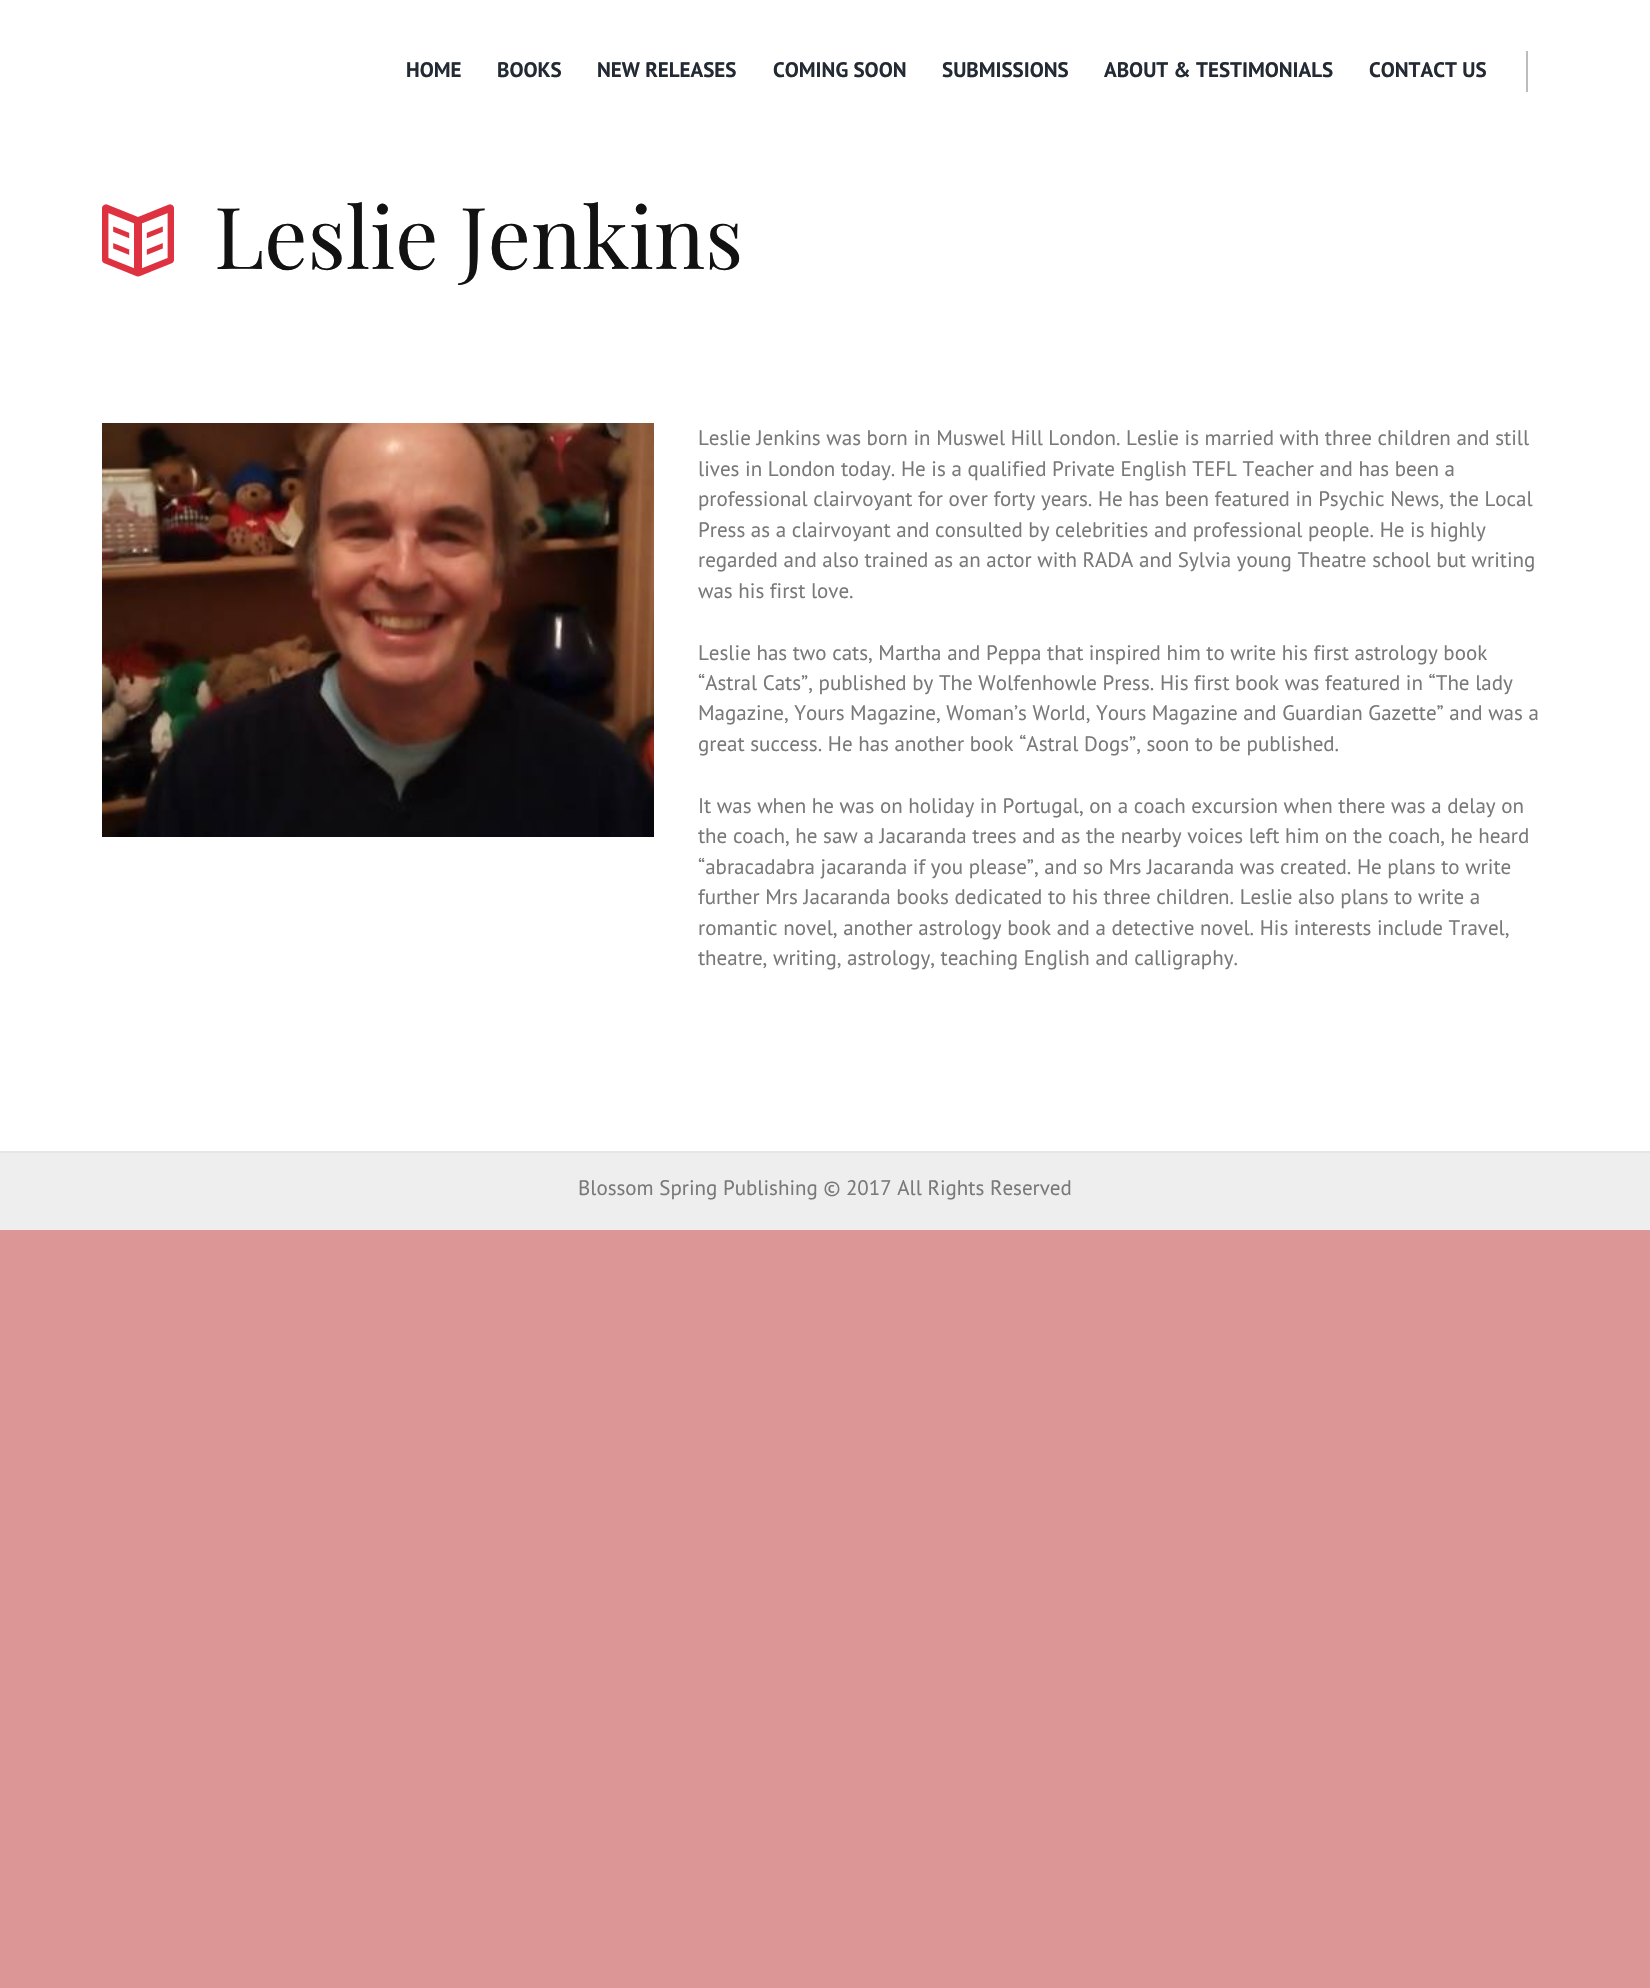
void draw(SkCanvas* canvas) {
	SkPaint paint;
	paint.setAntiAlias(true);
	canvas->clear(0xffdd9696);
	paint.setColor(0xffffffff);
	canvas->drawRect(SkRect::MakeXYWH(0, 0, 1650, 1151), paint);
	paint.setColor(0xffbcbcbc);
	canvas->drawRect(SkRect::MakeXYWH(1526, 51, 2, 41), paint);
	SkFont f1(fontMgr->matchFamilyStyle("PT Sans", SkFontStyle::Bold()), 21);
	f1.setSubpixel(true);
	paint.setColor(0xff232a34);
	canvas->drawString("HOME", 406, 77, f1, paint);
	canvas->drawString("BOOKS", 497, 77, f1, paint);
	canvas->drawString("NEW RELEASES", 597, 77, f1, paint);
	canvas->drawString("COMING SOON", 773, 77, f1, paint);
	canvas->drawString("SUBMISSIONS", 942, 77, f1, paint);
	canvas->drawString("ABOUT & TESTIMONIALS", 1104, 77, f1, paint);
	canvas->drawString("CONTACT US", 1369, 77, f1, paint);
	canvas->drawImageRect(SkImages::DeferredFromEncodedData(SkData::MakeFromFileName("img1.png")), SkRect::MakeXYWH(102, 204, 72, 73), SkSamplingOptions());
	SkFont f2(fontMgr->matchFamilyStyle("Playfair Display", SkFontStyle::Normal()), 85.5);
	f2.setSubpixel(true);
	paint.setColor(0xff121212);
	canvas->drawString("Leslie Jenkins", 214, 269, f2, paint);
	canvas->drawImageRect(SkImages::DeferredFromEncodedData(SkData::MakeFromFileName("img2.png")), SkRect::MakeXYWH(102, 423, 552, 414), SkSamplingOptions());
	SkFont f3(fontMgr->matchFamilyStyle("PT Sans", SkFontStyle::Normal()), 21);
	f3.setSubpixel(true);
	paint.setColor(0xff797979);
	canvas->drawString("Leslie Jenkins was born in Muswel Hill London. Leslie is married with three children and still", 698, 445, f3, paint);
	canvas->drawString("lives in London today. He is a qualified Private English TEFL Teacher and has been a", 698, 476, f3, paint);
	canvas->drawString("professional clairvoyant for over forty years. He has been featured in Psychic News, the Local", 698, 506, f3, paint);
	canvas->drawString("Press as a clairvoyant and consulted by celebrities and professional people. He is highly", 698, 537, f3, paint);
	canvas->drawString("regarded and also trained as an actor with RADA and Sylvia young Theatre school but writing", 698, 567, f3, paint);
	canvas->drawString("was his first love.", 698, 598, f3, paint);
	canvas->drawString("Leslie has two cats, Martha and Peppa that inspired him to write his first astrology book", 698, 660, f3, paint);
	canvas->drawString("“Astral Cats”, published by The Wolfenhowle Press. His first book was featured in “The lady", 698, 690, f3, paint);
	canvas->drawString("Magazine, Yours Magazine, Woman’s World, Yours Magazine and Guardian Gazette” and was a", 698, 720, f3, paint);
	canvas->drawString("great success. He has another book “Astral Dogs”, soon to be published.", 698, 751, f3, paint);
	canvas->drawString("It was when he was on holiday in Portugal, on a coach excursion when there was a delay on", 698, 813, f3, paint);
	canvas->drawString("the coach, he saw a Jacaranda trees and as the nearby voices left him on the coach, he heard", 698, 843, f3, paint);
	canvas->drawString("“abracadabra jacaranda if you please”, and so Mrs Jacaranda was created. He plans to write", 698, 874, f3, paint);
	canvas->drawString("further Mrs Jacaranda books dedicated to his three children. Leslie also plans to write a", 698, 904, f3, paint);
	canvas->drawString("romantic novel, another astrology book and a detective novel. His interests include Travel,", 698, 935, f3, paint);
	canvas->drawString("theatre, writing, astrology, teaching English and calligraphy.", 698, 965, f3, paint);
	paint.setColor(0xffeeeeee);
	canvas->drawRect(SkRect::MakeXYWH(0, 1153, 1650, 77), paint);
	paint.setColor(0xffe4e7e8);
	canvas->drawRect(SkRect::MakeXYWH(0, 1151, 1650, 2), paint);
	paint.setColor(0xff797979);
	canvas->drawString("Blossom Spring Publishing © 2017 All Rights Reserved", 578, 1195, f3, paint);
}
